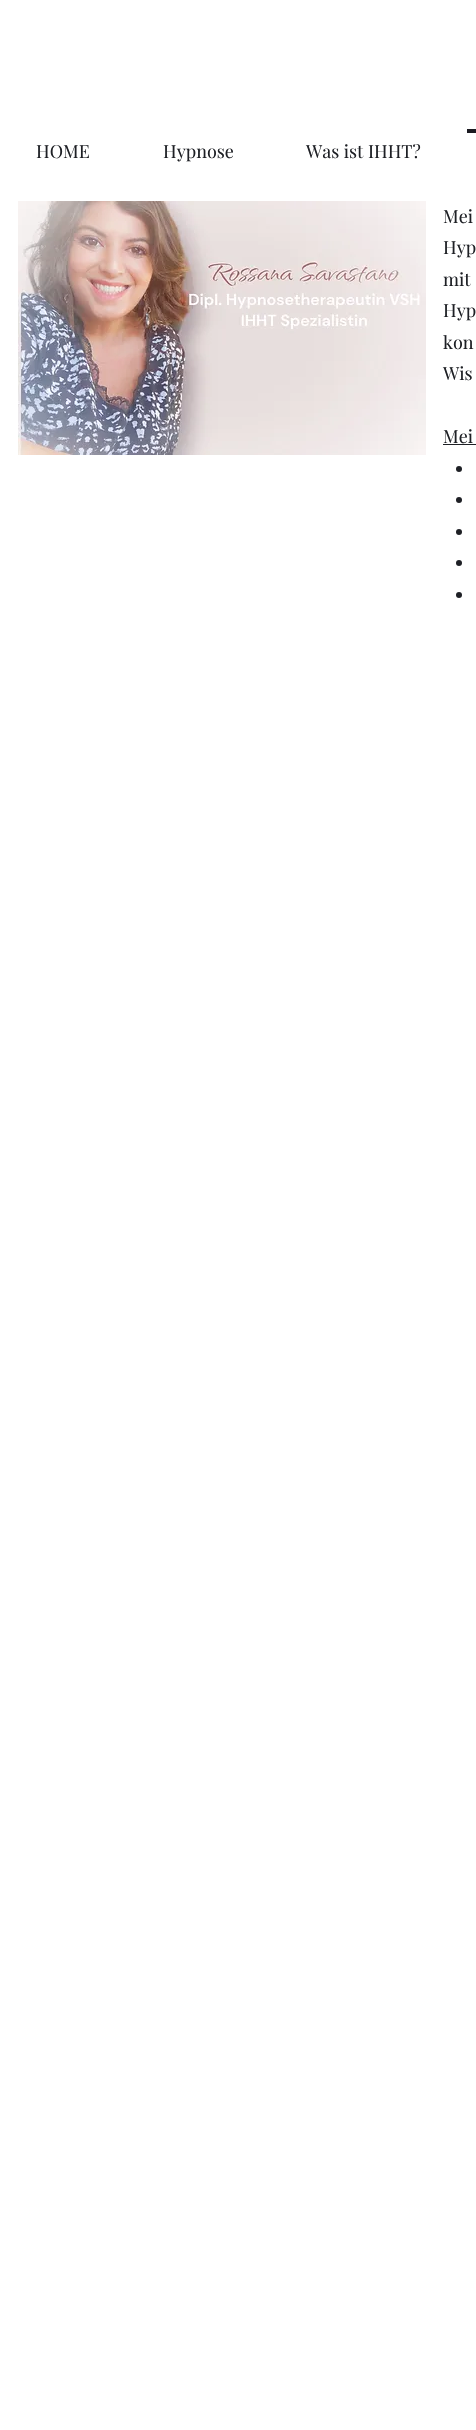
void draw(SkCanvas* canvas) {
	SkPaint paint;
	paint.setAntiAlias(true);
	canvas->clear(0xffffffff);
	paint.setColor(0xff1b1a21);
	canvas->drawRect(SkRect::MakeXYWH(467, 129, 9, 4), paint);
	SkFont f1(fontMgr->matchFamilyStyle("Playfair Display", SkFontStyle::Normal()), 18);
	f1.setSubpixel(true);
	paint.setColor(0xff1e2025);
	canvas->drawString("HOME", 36, 158, f1, paint);
	canvas->drawString("Hypnose", 163, 158, f1, paint);
	canvas->drawString("Was ist IHHT?", 306, 158, f1, paint);
	canvas->drawImageRect(SkImages::DeferredFromEncodedData(SkData::MakeFromFileName("img1.png")), SkRect::MakeXYWH(18, 201, 408, 254), SkSamplingOptions());
	canvas->drawString("Mei", 443, 223, f1, paint);
	canvas->drawString("Hyp", 443, 254, f1, paint);
	canvas->drawString("mit", 443, 286, f1, paint);
	canvas->drawString("Hyp", 443, 317, f1, paint);
	canvas->drawString("kon", 443, 349, f1, paint);
	canvas->drawString("Wis", 443, 380, f1, paint);
	canvas->drawString("Mei", 443, 443, f1, paint);
	canvas->drawRect(SkRect::MakeXYWH(443, 444, 33, 1), paint);
	canvas->drawCircle(459, 469, 3, paint);
	canvas->drawCircle(459, 500, 3, paint);
	canvas->drawCircle(459, 532, 3, paint);
	canvas->drawCircle(459, 563, 3, paint);
	canvas->drawCircle(459, 595, 3, paint);
}
